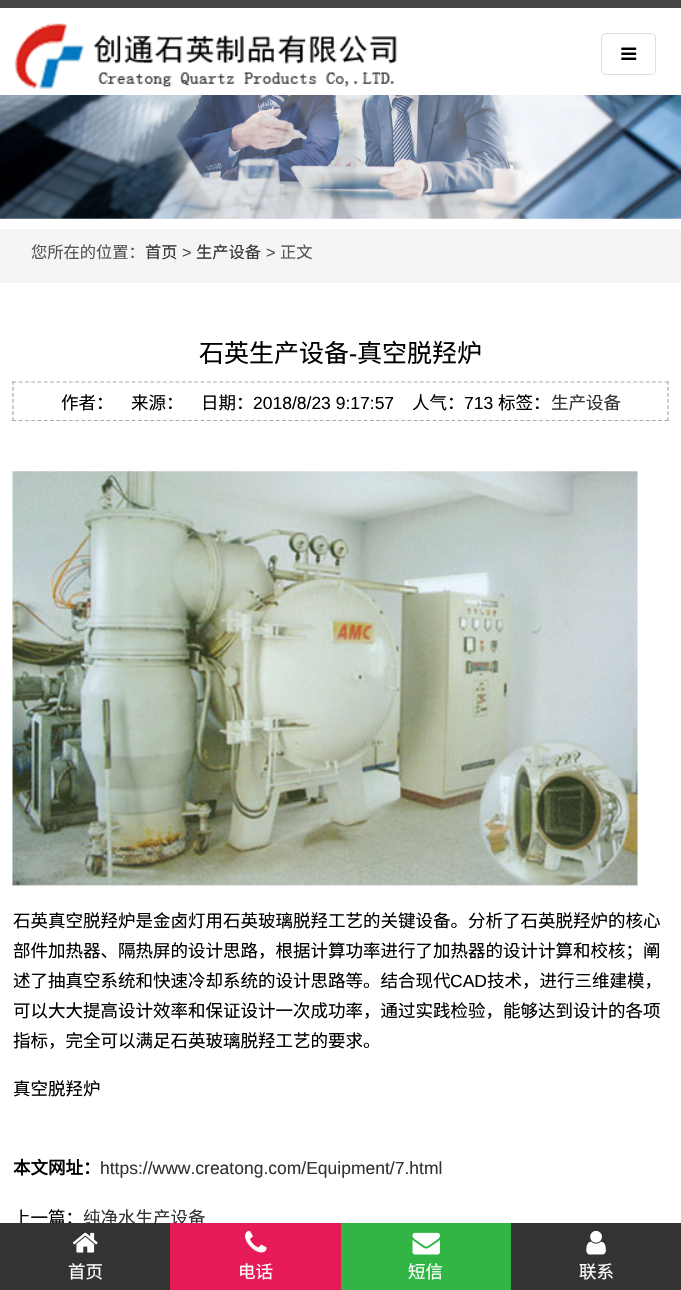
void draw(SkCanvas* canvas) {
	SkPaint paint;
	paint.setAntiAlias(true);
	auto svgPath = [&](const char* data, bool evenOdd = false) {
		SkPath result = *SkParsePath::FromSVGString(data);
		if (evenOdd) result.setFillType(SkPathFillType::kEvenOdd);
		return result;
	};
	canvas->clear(0xffffffff);
	paint.setColor(0xff444444);
	canvas->drawRect(SkRect::MakeXYWH(0, 0, 681, 8), paint);
	canvas->drawImageRect(SkImages::DeferredFromEncodedData(SkData::MakeFromFileName("img1.png")), SkRect::MakeXYWH(14, 23, 383, 66), SkSamplingOptions());
	paint.setStroke(true);
	paint.setStrokeWidth(1);
	paint.setColor(0xffdddddd);
	canvas->drawRoundRect(SkRect::MakeXYWH(601.5, 33.5, 54, 41), 4.5, 4.5, paint);
	canvas->drawImageRect(SkImages::DeferredFromEncodedData(SkData::MakeFromFileName("img2.png")), SkRect::MakeXYWH(621, 47, 16, 13), SkSamplingOptions());
	canvas->drawImageRect(SkImages::DeferredFromEncodedData(SkData::MakeFromFileName("img3.png")), SkRect::MakeXYWH(0, 95, 681, 124), SkSamplingOptions());
	paint.setStroke(false);
	paint.setColor(0xfff5f5f5);
	canvas->drawRect(SkRect::MakeXYWH(0, 229, 681, 54), paint);
	SkFont f1(fontMgr->matchFamilyStyle("Noto Sans CJK SC", SkFontStyle::Normal()), 16.25);
	f1.setSubpixel(true);
	paint.setColor(0xff555555);
	canvas->drawString("您所在的位置：", 31, 258, f1, paint);
	paint.setColor(0xff333333);
	canvas->drawString("首页", 145, 258, f1, paint);
	SkFont f2(fontMgr->matchFamilyStyle("Liberation Sans", SkFontStyle::Normal()), 16.25);
	f2.setSubpixel(true);
	paint.setColor(0xff555555);
	canvas->drawString(">", 182, 258, f2, paint);
	paint.setColor(0xff333333);
	canvas->drawString("生产设备", 196, 258, f1, paint);
	paint.setColor(0xff555555);
	canvas->drawString(">", 266, 258, f2, paint);
	canvas->drawString("正文", 280, 258, f1, paint);
	SkFont f3(fontMgr->matchFamilyStyle("Noto Sans CJK SC", SkFontStyle::Normal()), 25);
	f3.setSubpixel(true);
	paint.setColor(0xff000000);
	canvas->drawString("石英生产设备", 199, 362, f3, paint);
	SkFont f4(fontMgr->matchFamilyStyle("Liberation Sans", SkFontStyle::Normal()), 25);
	f4.setSubpixel(true);
	canvas->drawString("-", 349, 362, f4, paint);
	canvas->drawString("真空脱羟炉", 357, 362, f3, paint);
	paint.setStroke(true);
	paint.setStrokeWidth(1.2);
	paint.setColor(0xffaaaaaa);
	paint.setPathEffect(SkDashPathEffect::Make({{3.75f, 2.52f}}, 0));
	canvas->drawPath(svgPath("M12.5 382H669"), paint);
	paint.setPathEffect(nullptr);
	paint.setPathEffect(SkDashPathEffect::Make({{3.75f, 2.29f}}, 0));
	canvas->drawPath(svgPath("M668 381V421"), paint);
	paint.setPathEffect(nullptr);
	paint.setPathEffect(SkDashPathEffect::Make({{3.75f, 2.52f}}, 0));
	canvas->drawPath(svgPath("M12.5 420.5H669"), paint);
	paint.setPathEffect(nullptr);
	paint.setPathEffect(SkDashPathEffect::Make({{3.75f, 2.29f}}, 0));
	canvas->drawPath(svgPath("M13 381V421"), paint);
	paint.setPathEffect(nullptr);
	SkFont f5(fontMgr->matchFamilyStyle("Noto Sans CJK SC", SkFontStyle::Normal()), 17.5);
	f5.setSubpixel(true);
	paint.setStroke(false);
	paint.setColor(0xff000000);
	canvas->drawString("作者：　来源：　日期：", 61, 409, f5, paint);
	SkFont f6(fontMgr->matchFamilyStyle("Liberation Sans", SkFontStyle::Normal()), 17.5);
	f6.setSubpixel(true);
	canvas->drawString("2018/8/23 9:17:57", 253, 409, f6, paint);
	canvas->drawString("人气：", 412, 409, f5, paint);
	canvas->drawString("713", 464, 409, f6, paint);
	canvas->drawString("标签：", 498, 409, f5, paint);
	paint.setColor(0xff333333);
	canvas->drawString("生产设备", 551, 409, f5, paint);
	canvas->drawImageRect(SkImages::DeferredFromEncodedData(SkData::MakeFromFileName("img4.png")), SkRect::MakeXYWH(12, 471, 626, 416), SkSamplingOptions());
	paint.setColor(0xff000000);
	canvas->drawString("石英真空脱羟炉是金卤灯用石英玻璃脱羟工艺的关键设备。分析了石英脱羟炉的核心", 13, 927, f5, paint);
	canvas->drawString("部件加热器、隔热屏的设计思路，根据计算功率进行了加热器的设计计算和校核；阐", 13, 957, f5, paint);
	canvas->drawString("述了抽真空系统和快速冷却系统的设计思路等。结合现代", 13, 987, f5, paint);
	canvas->drawString("CAD", 450, 987, f6, paint);
	canvas->drawString("技术，进行三维建模，", 487, 987, f5, paint);
	canvas->drawString("可以大大提高设计效率和保证设计一次成功率，通过实践检验，能够达到设计的各项", 13, 1017, f5, paint);
	canvas->drawString("指标，完全可以满足石英玻璃脱羟工艺的要求。", 13, 1047, f5, paint);
	canvas->drawString("真空脱羟炉", 13, 1095, f5, paint);
	SkFont f7(fontMgr->matchFamilyStyle("Noto Sans CJK SC", SkFontStyle::Bold()), 17.5);
	f7.setSubpixel(true);
	canvas->drawString("本文网址：", 13, 1174, f7, paint);
	paint.setColor(0xff333333);
	canvas->drawString("https://www.creatong.com/Equipment/7.html", 100, 1174, f6, paint);
	paint.setColor(0xff000000);
	canvas->drawString("上一篇：", 13, 1224, f5, paint);
	paint.setColor(0xff333333);
	canvas->drawString("纯净水生产设备", 83, 1224, f5, paint);
	canvas->drawRect(SkRect::MakeXYWH(0, 1223, 681, 67), paint);
	canvas->drawImageRect(SkImages::DeferredFromEncodedData(SkData::MakeFromFileName("img5.png")), SkRect::MakeXYWH(72, 1232, 26, 21), SkSamplingOptions());
	paint.setColor(0xffffffff);
	canvas->drawString("首页", 68, 1278, f5, paint);
	paint.setColor(0xffe51a57);
	canvas->drawRect(SkRect::MakeXYWH(170, 1223, 171, 67), paint);
	canvas->drawImageRect(SkImages::DeferredFromEncodedData(SkData::MakeFromFileName("img6.png")), SkRect::MakeXYWH(245, 1230, 22, 23), SkSamplingOptions());
	paint.setColor(0xffffffff);
	canvas->drawString("电话", 238, 1278, f5, paint);
	paint.setColor(0xff32b544);
	canvas->drawRect(SkRect::MakeXYWH(341, 1223, 170, 67), paint);
	canvas->drawImageRect(SkImages::DeferredFromEncodedData(SkData::MakeFromFileName("img7.png")), SkRect::MakeXYWH(412, 1232, 28, 23), SkSamplingOptions());
	paint.setColor(0xffffffff);
	canvas->drawString("短信", 408, 1278, f5, paint);
	canvas->drawImageRect(SkImages::DeferredFromEncodedData(SkData::MakeFromFileName("img8.png")), SkRect::MakeXYWH(586, 1230, 20, 25), SkSamplingOptions());
	canvas->drawString("联系", 579, 1278, f5, paint);
}
